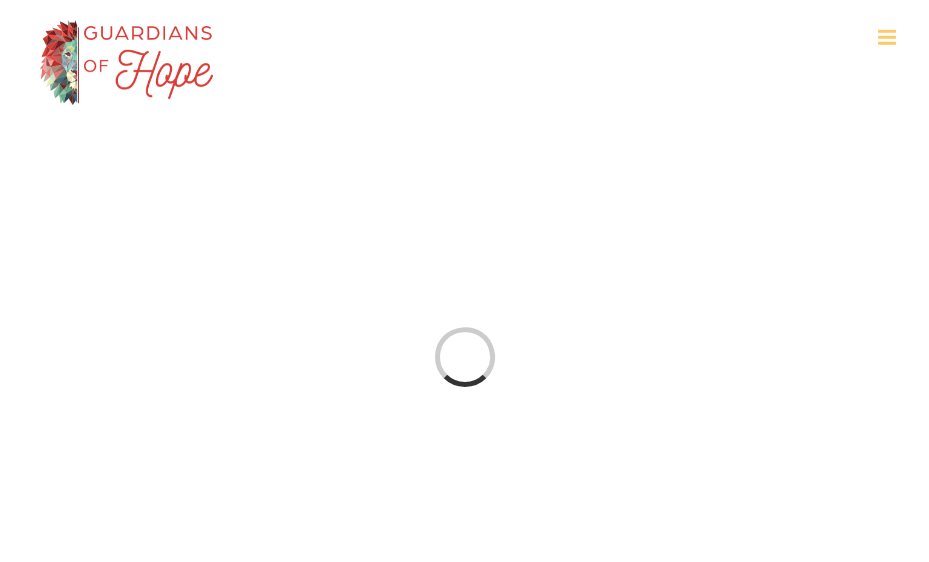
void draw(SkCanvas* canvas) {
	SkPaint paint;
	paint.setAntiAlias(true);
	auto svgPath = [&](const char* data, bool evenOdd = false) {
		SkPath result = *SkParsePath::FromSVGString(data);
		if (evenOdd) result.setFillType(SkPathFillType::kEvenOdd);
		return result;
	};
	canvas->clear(0xffffffff);
	canvas->drawImageRect(SkImages::DeferredFromEncodedData(SkData::MakeFromFileName("img1.png")), SkRect::MakeXYWH(40, 20, 173, 85), SkSamplingOptions());
	canvas->drawImageRect(SkImages::DeferredFromEncodedData(SkData::MakeFromFileName("img2.png")), SkRect::MakeXYWH(878, 29, 18, 16), SkSamplingOptions());
	paint.setStroke(true);
	paint.setStrokeWidth(5);
	paint.setColor(0xff333333);
	canvas->drawPath(svgPath("M484.5 376.5C474 387 456 387 445.5 376.5"), paint);
	paint.setColor(0x33000000);
	canvas->drawPath(svgPath("M445.5 376.5C440.5 371.5 437.5 364 437.5 357C437.5 324 485.5 319.5 492 351.5C494 360.5 491 370 484.5 376.5"), paint);
}
